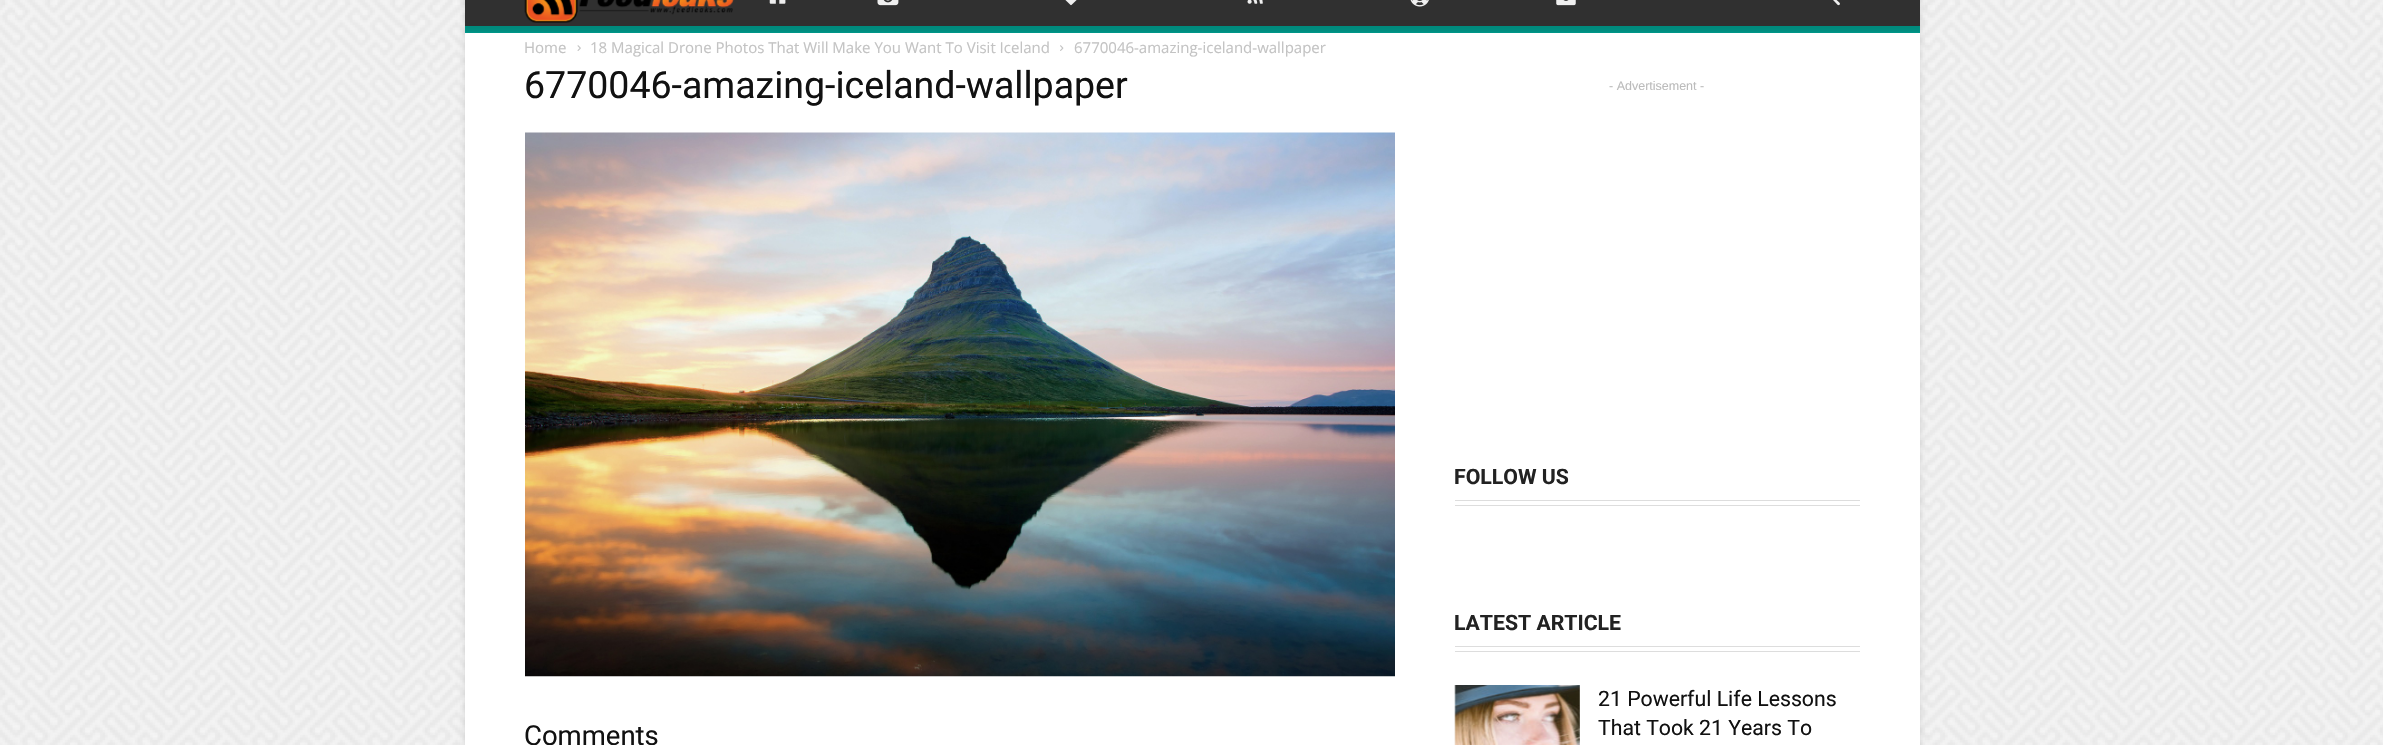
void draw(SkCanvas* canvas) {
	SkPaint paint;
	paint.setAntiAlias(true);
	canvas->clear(0xffffffff);
	canvas->drawImageRect(SkImages::DeferredFromEncodedData(SkData::MakeFromFileName("img1.png")), SkRect::MakeXYWH(0, 0, 2383, 745), SkSamplingOptions());
	paint.setColor(0x1f000000);
	paint.setMaskFilter(SkMaskFilter::MakeBlur(kNormal_SkBlurStyle, 3));
	canvas->drawRect(SkRect::MakeXYWH(465, -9, 1455, 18), paint);
	paint.setMaskFilter(nullptr);
	paint.setMaskFilter(SkMaskFilter::MakeBlur(kNormal_SkBlurStyle, 3));
	canvas->drawRect(SkRect::MakeXYWH(465, 9, 1455, 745), paint);
	paint.setMaskFilter(nullptr);
	paint.setColor(0xff303030);
	canvas->drawRect(SkRect::MakeXYWH(465, 0, 1455, 26), paint);
	canvas->drawImageRect(SkImages::DeferredFromEncodedData(SkData::MakeFromFileName("img2.png")), SkRect::MakeXYWH(524, 0, 210, 23), SkSamplingOptions());
	canvas->drawImageRect(SkImages::DeferredFromEncodedData(SkData::MakeFromFileName("img3.png")), SkRect::MakeXYWH(769, 0, 17, 4), SkSamplingOptions());
	canvas->drawImageRect(SkImages::DeferredFromEncodedData(SkData::MakeFromFileName("img4.png")), SkRect::MakeXYWH(877, 0, 22, 6), SkSamplingOptions());
	canvas->drawImageRect(SkImages::DeferredFromEncodedData(SkData::MakeFromFileName("img5.png")), SkRect::MakeXYWH(1065, 0, 12, 6), SkSamplingOptions());
	canvas->drawImageRect(SkImages::DeferredFromEncodedData(SkData::MakeFromFileName("img6.png")), SkRect::MakeXYWH(1247, 0, 16, 4), SkSamplingOptions());
	canvas->drawImageRect(SkImages::DeferredFromEncodedData(SkData::MakeFromFileName("img7.png")), SkRect::MakeXYWH(1410, 0, 19, 7), SkSamplingOptions());
	canvas->drawImageRect(SkImages::DeferredFromEncodedData(SkData::MakeFromFileName("img8.png")), SkRect::MakeXYWH(1556, 0, 20, 6), SkSamplingOptions());
	canvas->drawImageRect(SkImages::DeferredFromEncodedData(SkData::MakeFromFileName("img9.png")), SkRect::MakeXYWH(1833, 0, 7, 6), SkSamplingOptions());
	paint.setColor(0xff009688);
	canvas->drawRect(SkRect::MakeXYWH(465, 26, 1455, 7), paint);
	canvas->drawImageRect(SkImages::DeferredFromEncodedData(SkData::MakeFromFileName("img10.png")), SkRect::MakeXYWH(465, 26, 1455, 6), SkSamplingOptions());
	paint.setColor(0xffffffff);
	canvas->drawRect(SkRect::MakeXYWH(465, 33, 1455, 712), paint);
	SkFont f1(fontMgr->matchFamilyStyle("Open Sans", SkFontStyle::Normal()), 15);
	f1.setSubpixel(true);
	paint.setColor(0xffc3c3c3);
	canvas->drawString("Home", 524, 53, f1, paint);
	canvas->drawImageRect(SkImages::DeferredFromEncodedData(SkData::MakeFromFileName("img11.png")), SkRect::MakeXYWH(577, 45, 4, 6), SkSamplingOptions());
	canvas->drawString("18 Magical Drone Photos That Will Make You Want To Visit Iceland", 590, 53, f1, paint);
	canvas->drawImageRect(SkImages::DeferredFromEncodedData(SkData::MakeFromFileName("img12.png")), SkRect::MakeXYWH(1060, 45, 4, 6), SkSamplingOptions());
	canvas->drawString("6770046-amazing-iceland-wallpaper", 1074, 53, f1, paint);
	SkFont f2(fontMgr->matchFamilyStyle("Roboto", SkFontStyle::Normal()), 37.5);
	f2.setSubpixel(true);
	paint.setColor(0xff111111);
	canvas->drawString("6770046-amazing-iceland-wallpaper", 524, 98, f2, paint);
	canvas->drawImageRect(SkImages::DeferredFromEncodedData(SkData::MakeFromFileName("img13.png")), SkRect::MakeXYWH(525, 132, 870, 545), SkSamplingOptions());
	SkFont f3(fontMgr->matchFamilyStyle("Roboto", SkFontStyle::Normal()), 27.5);
	f3.setSubpixel(true);
	canvas->drawString("Comments", 524, 745, f3, paint);
	SkFont f4(fontMgr->matchFamilyStyle("Liberation Sans", SkFontStyle::Normal()), 12.5);
	f4.setSubpixel(true);
	paint.setColor(0xffbbbbbb);
	canvas->drawString("- Advertisement -", 1609, 90, f4, paint);
	SkFont f5(fontMgr->matchFamilyStyle("Roboto", SkFontStyle::Bold()), 21.25);
	f5.setSubpixel(true);
	paint.setColor(0xff222222);
	canvas->drawString("FOLLOW US", 1454, 484, f5, paint);
	paint.setColor(0xffdddddd);
	canvas->drawRect(SkRect::MakeXYWH(1455, 500, 405, 1), paint);
	canvas->drawRect(SkRect::MakeXYWH(1455, 505, 405, 1), paint);
	paint.setColor(0xff222222);
	canvas->drawString("LATEST ARTICLE", 1454, 630, f5, paint);
	paint.setColor(0xffdddddd);
	canvas->drawRect(SkRect::MakeXYWH(1455, 646, 405, 1), paint);
	canvas->drawRect(SkRect::MakeXYWH(1455, 651, 405, 1), paint);
	canvas->drawImageRect(SkImages::DeferredFromEncodedData(SkData::MakeFromFileName("img14.png")), SkRect::MakeXYWH(1454, 685, 126, 60), SkSamplingOptions());
	SkFont f6(fontMgr->matchFamilyStyle("Roboto", SkFontStyle::Normal()), 21.25);
	f6.setSubpixel(true);
	paint.setColor(0xff111111);
	canvas->drawString("21 Powerful Life Lessons", 1598, 706, f6, paint);
	canvas->drawString("That Took 21 Years To", 1598, 735, f6, paint);
}
